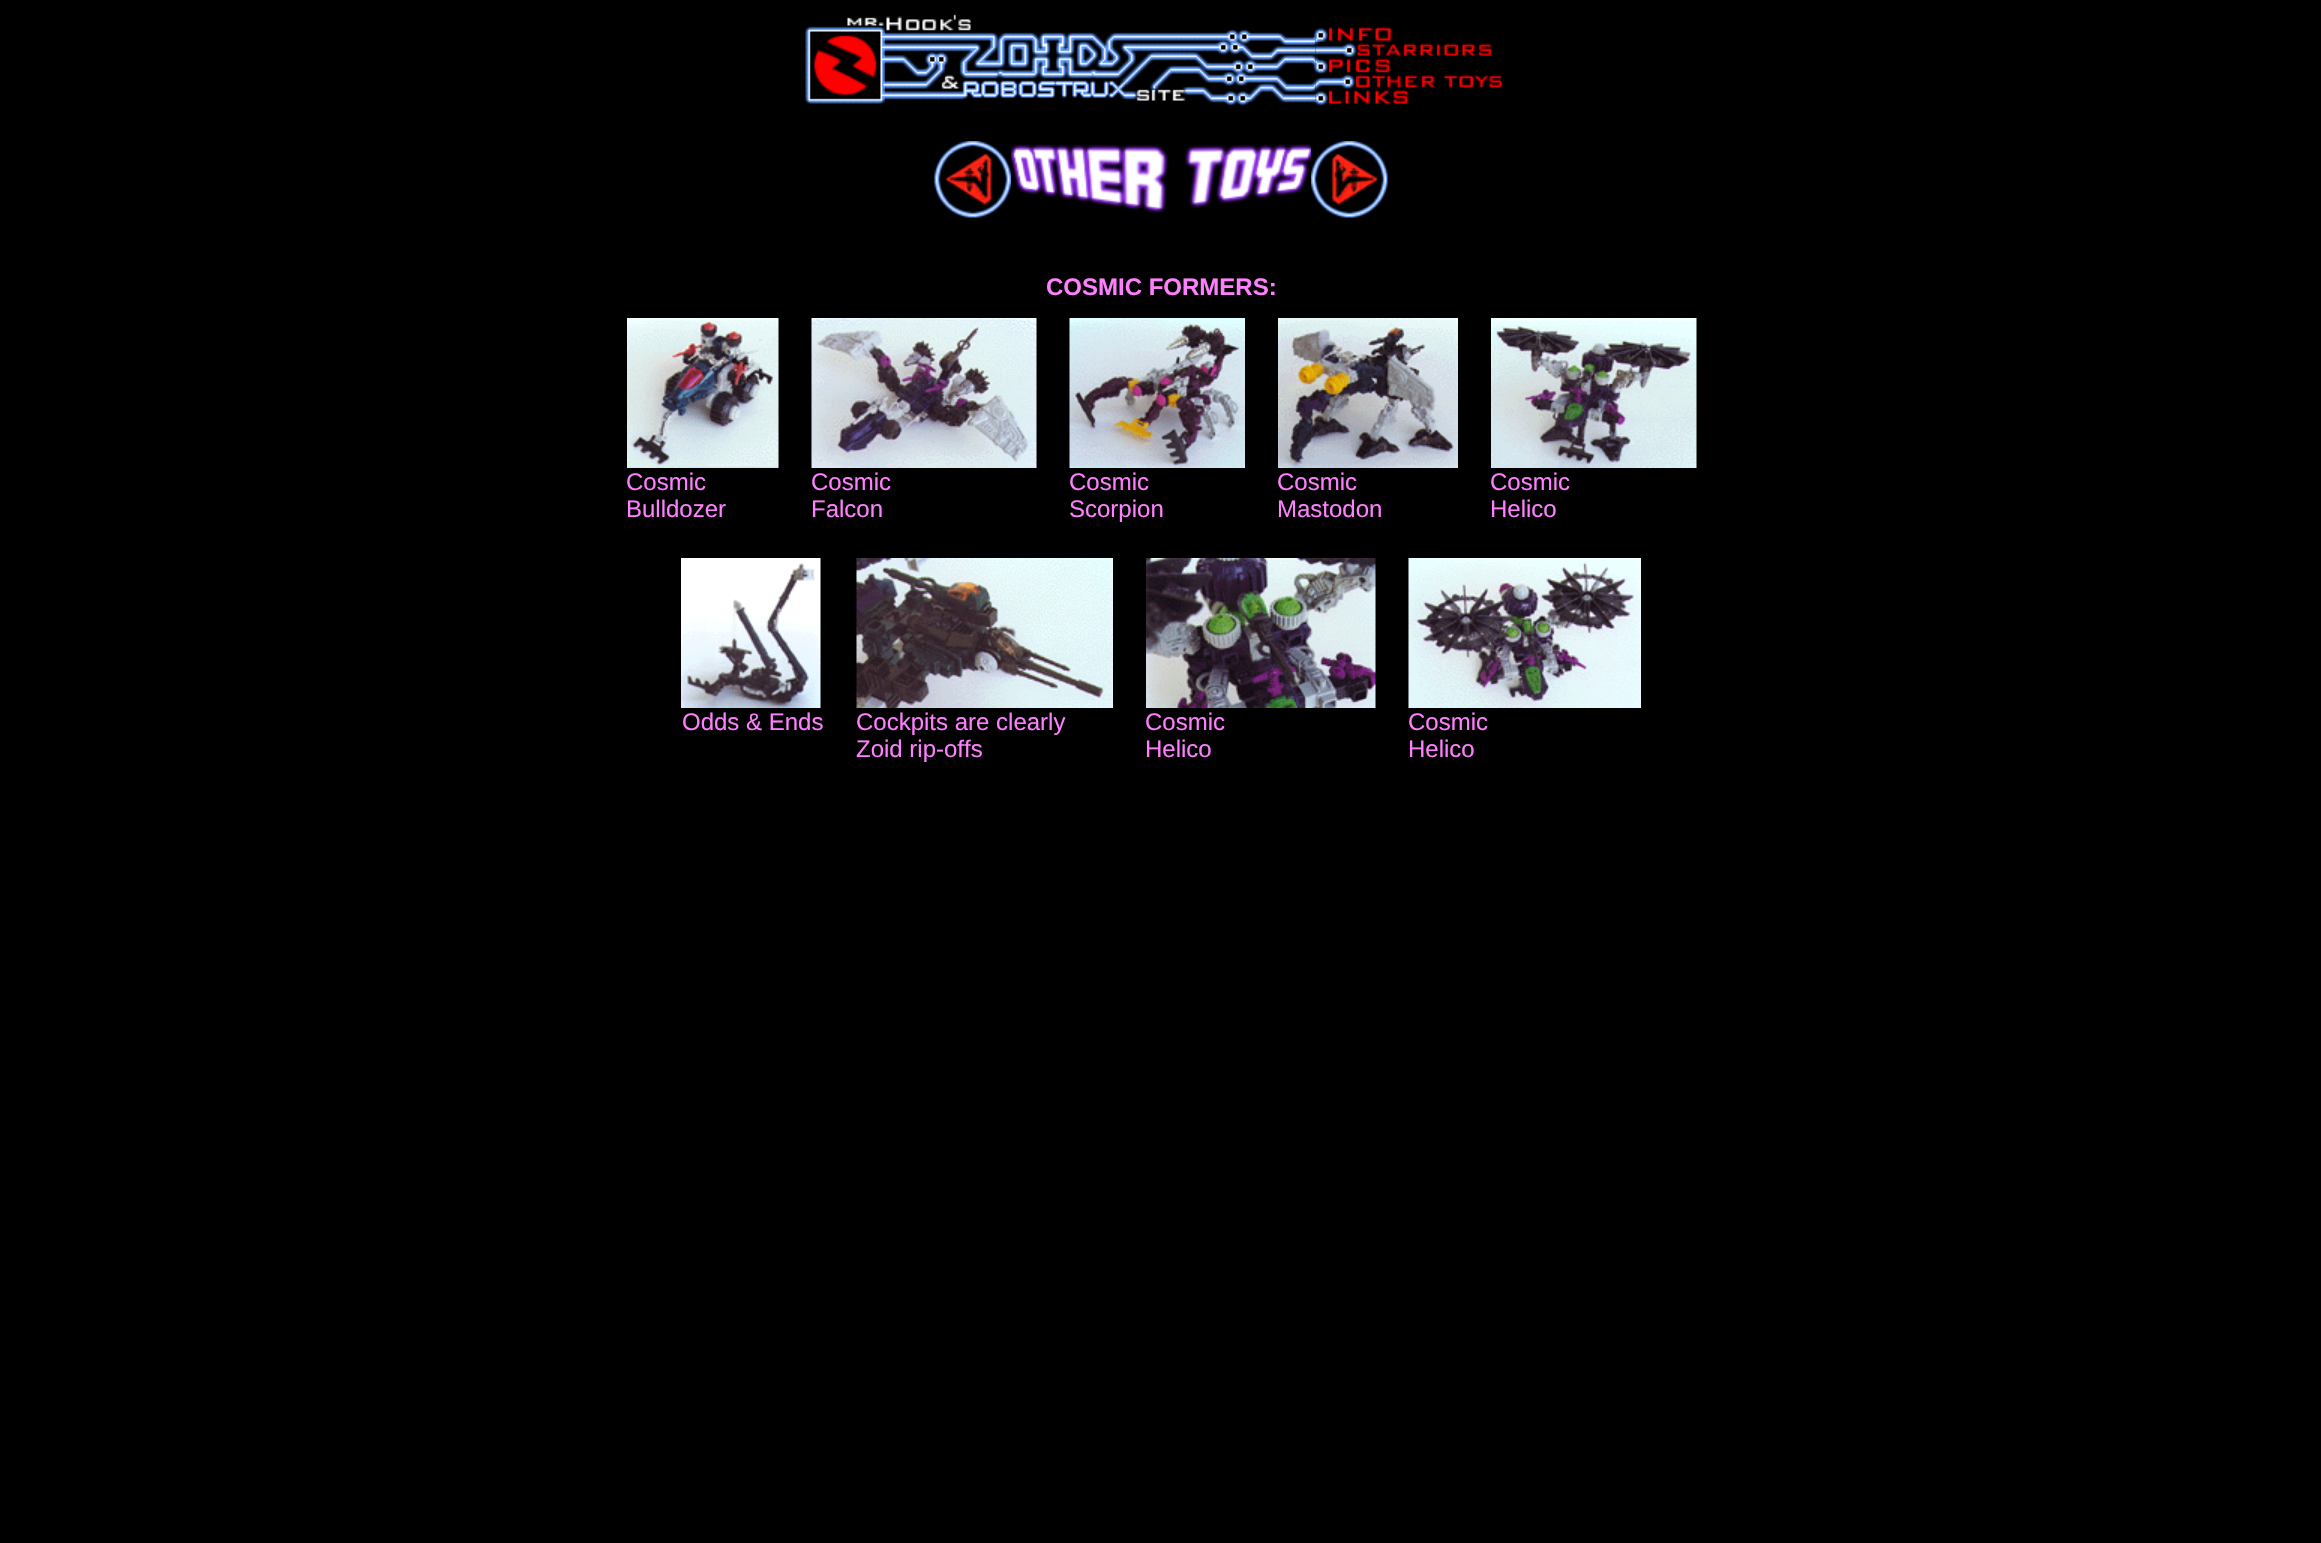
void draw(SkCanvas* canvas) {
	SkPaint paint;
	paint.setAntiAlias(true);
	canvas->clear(0xff000000);
	canvas->drawImageRect(SkImages::DeferredFromEncodedData(SkData::MakeFromFileName("img1.png")), SkRect::MakeXYWH(805, 17, 80, 87), SkSamplingOptions());
	canvas->drawImageRect(SkImages::DeferredFromEncodedData(SkData::MakeFromFileName("img2.png")), SkRect::MakeXYWH(885, 14, 431, 92), SkSamplingOptions());
	canvas->drawImageRect(SkImages::DeferredFromEncodedData(SkData::MakeFromFileName("img3.png")), SkRect::MakeXYWH(1315, 26, 78, 16), SkSamplingOptions());
	canvas->drawImageRect(SkImages::DeferredFromEncodedData(SkData::MakeFromFileName("img4.png")), SkRect::MakeXYWH(1315, 42, 177, 15), SkSamplingOptions());
	canvas->drawImageRect(SkImages::DeferredFromEncodedData(SkData::MakeFromFileName("img5.png")), SkRect::MakeXYWH(1315, 57, 76, 17), SkSamplingOptions());
	canvas->drawImageRect(SkImages::DeferredFromEncodedData(SkData::MakeFromFileName("img6.png")), SkRect::MakeXYWH(1315, 73, 187, 17), SkSamplingOptions());
	canvas->drawImageRect(SkImages::DeferredFromEncodedData(SkData::MakeFromFileName("img7.png")), SkRect::MakeXYWH(1315, 90, 94, 16), SkSamplingOptions());
	canvas->drawImageRect(SkImages::DeferredFromEncodedData(SkData::MakeFromFileName("img8.png")), SkRect::MakeXYWH(934, 141, 77, 77), SkSamplingOptions());
	canvas->drawImageRect(SkImages::DeferredFromEncodedData(SkData::MakeFromFileName("img9.png")), SkRect::MakeXYWH(1011, 144, 300, 69), SkSamplingOptions());
	canvas->drawImageRect(SkImages::DeferredFromEncodedData(SkData::MakeFromFileName("img10.png")), SkRect::MakeXYWH(1311, 141, 77, 77), SkSamplingOptions());
	SkFont f1(fontMgr->matchFamilyStyle("Liberation Sans", SkFontStyle::Bold()), 24);
	f1.setSubpixel(true);
	paint.setColor(0xffff80ff);
	canvas->drawString("COSMIC FORMERS:", 1046, 295, f1, paint);
	canvas->drawImageRect(SkImages::DeferredFromEncodedData(SkData::MakeFromFileName("img11.png")), SkRect::MakeXYWH(627, 318, 152, 150), SkSamplingOptions());
	SkFont f2(fontMgr->matchFamilyStyle("Liberation Sans", SkFontStyle::Normal()), 24);
	f2.setSubpixel(true);
	canvas->drawString("Cosmic", 626, 490, f2, paint);
	canvas->drawString("Bulldozer", 626, 517, f2, paint);
	canvas->drawImageRect(SkImages::DeferredFromEncodedData(SkData::MakeFromFileName("img12.png")), SkRect::MakeXYWH(811, 318, 226, 150), SkSamplingOptions());
	canvas->drawString("Cosmic", 811, 490, f2, paint);
	canvas->drawString("Falcon", 811, 517, f2, paint);
	canvas->drawImageRect(SkImages::DeferredFromEncodedData(SkData::MakeFromFileName("img13.png")), SkRect::MakeXYWH(1069, 318, 176, 150), SkSamplingOptions());
	canvas->drawString("Cosmic", 1069, 490, f2, paint);
	canvas->drawString("Scorpion", 1069, 517, f2, paint);
	canvas->drawImageRect(SkImages::DeferredFromEncodedData(SkData::MakeFromFileName("img14.png")), SkRect::MakeXYWH(1278, 318, 180, 150), SkSamplingOptions());
	canvas->drawString("Cosmic", 1277, 490, f2, paint);
	canvas->drawString("Mastodon", 1277, 517, f2, paint);
	canvas->drawImageRect(SkImages::DeferredFromEncodedData(SkData::MakeFromFileName("img15.png")), SkRect::MakeXYWH(1491, 318, 206, 150), SkSamplingOptions());
	canvas->drawString("Cosmic", 1490, 490, f2, paint);
	canvas->drawString("Helico", 1490, 517, f2, paint);
	canvas->drawImageRect(SkImages::DeferredFromEncodedData(SkData::MakeFromFileName("img16.png")), SkRect::MakeXYWH(681, 558, 140, 150), SkSamplingOptions());
	canvas->drawString("Odds & Ends", 682, 730, f2, paint);
	canvas->drawImageRect(SkImages::DeferredFromEncodedData(SkData::MakeFromFileName("img17.png")), SkRect::MakeXYWH(856, 558, 257, 150), SkSamplingOptions());
	canvas->drawString("Cockpits are clearly", 856, 730, f2, paint);
	canvas->drawString("Zoid rip-offs", 856, 757, f2, paint);
	canvas->drawImageRect(SkImages::DeferredFromEncodedData(SkData::MakeFromFileName("img18.png")), SkRect::MakeXYWH(1146, 558, 230, 150), SkSamplingOptions());
	canvas->drawString("Cosmic", 1145, 730, f2, paint);
	canvas->drawString("Helico", 1145, 757, f2, paint);
	canvas->drawImageRect(SkImages::DeferredFromEncodedData(SkData::MakeFromFileName("img19.png")), SkRect::MakeXYWH(1408, 558, 233, 150), SkSamplingOptions());
	canvas->drawString("Cosmic", 1408, 730, f2, paint);
	canvas->drawString("Helico", 1408, 757, f2, paint);
}
